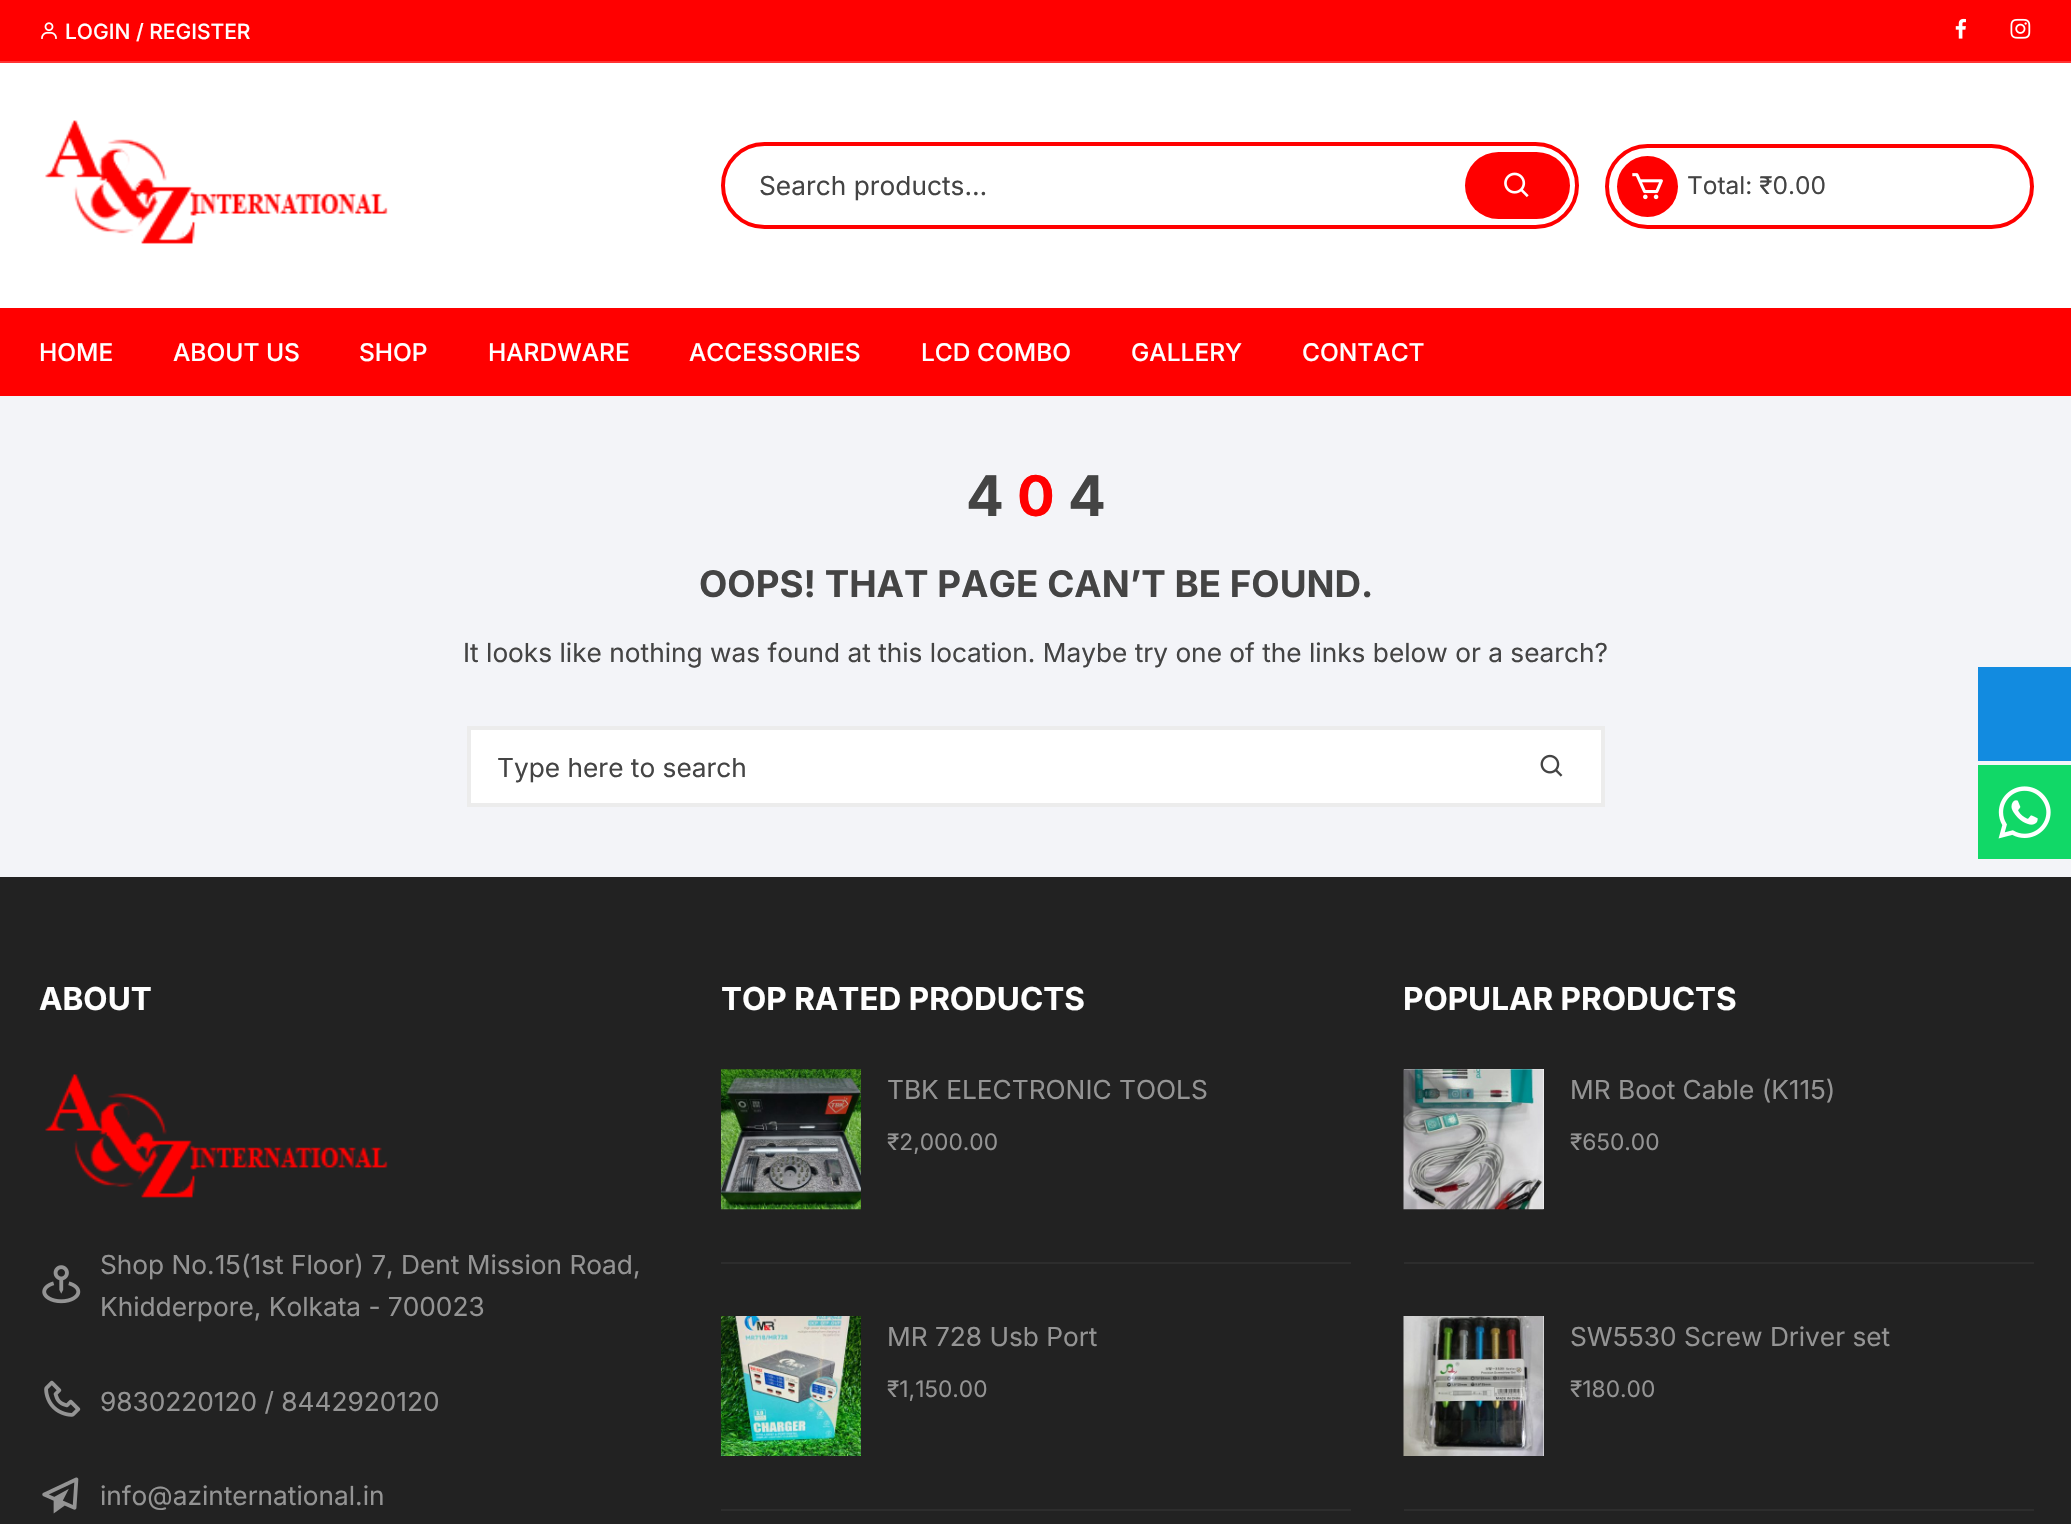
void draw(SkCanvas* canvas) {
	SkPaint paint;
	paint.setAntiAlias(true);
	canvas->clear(0xfff3f4f8);
	paint.setColor(0xffffffff);
	canvas->drawRect(SkRect::MakeXYWH(0, 63, 2071, 245), paint);
	paint.setColor(0xffff0000);
	canvas->drawRect(SkRect::MakeXYWH(0, 0, 2071, 61), paint);
	paint.setColor(0xffff3333);
	canvas->drawRect(SkRect::MakeXYWH(0, 61, 2071, 2), paint);
	canvas->drawImageRect(SkImages::DeferredFromEncodedData(SkData::MakeFromFileName("img1.png")), SkRect::MakeXYWH(41, 22, 16, 17), SkSamplingOptions());
	SkFont f1(fontMgr->matchFamilyStyle("Inter", SkFontStyle(500, SkFontStyle::kNormal_Width, SkFontStyle::kUpright_Slant)), 21);
	f1.setSubpixel(true);
	paint.setColor(0xffffffff);
	canvas->drawString("LOGIN / REGISTER", 65, 39, f1, paint);
	canvas->drawImageRect(SkImages::DeferredFromEncodedData(SkData::MakeFromFileName("img2.png")), SkRect::MakeXYWH(1955, 18, 11, 21), SkSamplingOptions());
	canvas->drawImageRect(SkImages::DeferredFromEncodedData(SkData::MakeFromFileName("img3.png")), SkRect::MakeXYWH(2010, 18, 21, 21), SkSamplingOptions());
	canvas->drawImageRect(SkImages::DeferredFromEncodedData(SkData::MakeFromFileName("img4.png")), SkRect::MakeXYWH(45, 120, 343, 124), SkSamplingOptions());
	paint.setStroke(true);
	paint.setStrokeWidth(4);
	paint.setColor(0xffff0000);
	canvas->drawRoundRect(SkRect::MakeXYWH(723, 144, 854, 83), 41.5, 41.5, paint);
	SkFont f2(fontMgr->matchFamilyStyle("Inter", SkFontStyle::Normal()), 26.25);
	f2.setSubpixel(true);
	paint.setStroke(false);
	paint.setColor(0xff444444);
	canvas->drawString("Search products…", 759, 195, f2, paint);
	paint.setColor(0xffff0000);
	canvas->drawRoundRect(SkRect::MakeXYWH(1465, 152, 105, 67), 33.5, 33.5, paint);
	canvas->drawImageRect(SkImages::DeferredFromEncodedData(SkData::MakeFromFileName("img5.png")), SkRect::MakeXYWH(1504, 172, 25, 26), SkSamplingOptions());
	paint.setStroke(true);
	canvas->drawRoundRect(SkRect::MakeXYWH(1607, 146, 425, 81), 40.5, 40.5, paint);
	paint.setStroke(false);
	canvas->drawCircle(1647.5, 186.5, 30.5, paint);
	canvas->drawImageRect(SkImages::DeferredFromEncodedData(SkData::MakeFromFileName("img6.png")), SkRect::MakeXYWH(1632, 173, 31, 27), SkSamplingOptions());
	SkFont f3(fontMgr->matchFamilyStyle("Inter", SkFontStyle::Normal()), 24.5);
	f3.setSubpixel(true);
	paint.setColor(0xff444444);
	canvas->drawString("Total: ₹0.00", 1687, 194, f3, paint);
	paint.setColor(0xffff0000);
	canvas->drawRect(SkRect::MakeXYWH(0, 308, 2071, 88), paint);
	SkFont f4(fontMgr->matchFamilyStyle("Inter", SkFontStyle(500, SkFontStyle::kNormal_Width, SkFontStyle::kUpright_Slant)), 24.5);
	f4.setSubpixel(true);
	paint.setColor(0xffffffff);
	canvas->drawString("HOME", 39, 361, f4, paint);
	canvas->drawString("ABOUT US", 173, 361, f4, paint);
	canvas->drawString("SHOP", 359, 361, f4, paint);
	canvas->drawString("HARDWARE", 488, 361, f4, paint);
	canvas->drawString("ACCESSORIES", 689, 361, f4, paint);
	canvas->drawString("LCD COMBO", 921, 361, f4, paint);
	canvas->drawString("GALLERY", 1131, 361, f4, paint);
	canvas->drawString("CONTACT", 1302, 361, f4, paint);
	SkFont f5(fontMgr->matchFamilyStyle("Inter", SkFontStyle::Bold()), 56);
	f5.setSubpixel(true);
	paint.setColor(0xff444444);
	canvas->drawString("4", 966, 516, f5, paint);
	paint.setColor(0xffff0000);
	canvas->drawString("0", 1017, 516, f5, paint);
	paint.setColor(0xff444444);
	canvas->drawString("4", 1068, 516, f5, paint);
	SkFont f6(fontMgr->matchFamilyStyle("Inter", SkFontStyle::Bold()), 36.75);
	f6.setSubpixel(true);
	canvas->drawString("OOPS! THAT PAGE CAN’T BE FOUND.", 699, 597, f6, paint);
	canvas->drawString("It looks like nothing was found at this location. Maybe try one of the links below or a search?", 463, 662, f2, paint);
	paint.setColor(0xffffffff);
	canvas->drawRect(SkRect::MakeXYWH(469, 728, 1134, 77), paint);
	paint.setStroke(true);
	paint.setColor(0xffececec);
	canvas->drawRect(SkRect::MakeXYWH(469, 728, 1134, 77), paint);
	paint.setStroke(false);
	paint.setColor(0xff444444);
	canvas->drawString("Type here to search", 497, 777, f2, paint);
	canvas->drawImageRect(SkImages::DeferredFromEncodedData(SkData::MakeFromFileName("img7.png")), SkRect::MakeXYWH(1540, 754, 23, 23), SkSamplingOptions());
	paint.setColor(0xff222222);
	canvas->drawRect(SkRect::MakeXYWH(0, 877, 2071, 647), paint);
	SkFont f7(fontMgr->matchFamilyStyle("Inter", SkFontStyle::Bold()), 31.5);
	f7.setSubpixel(true);
	paint.setColor(0xffffffff);
	canvas->drawString("ABOUT", 39, 1010, f7, paint);
	canvas->drawImageRect(SkImages::DeferredFromEncodedData(SkData::MakeFromFileName("img8.png")), SkRect::MakeXYWH(45, 1074, 343, 124), SkSamplingOptions());
	canvas->drawImageRect(SkImages::DeferredFromEncodedData(SkData::MakeFromFileName("img9.png")), SkRect::MakeXYWH(42, 1265, 39, 39), SkSamplingOptions());
	paint.setColor(0xff949494);
	canvas->drawString("Shop No.15(1st Floor) 7, Dent Mission Road,", 100, 1274, f2, paint);
	canvas->drawString("Khidderpore, Kolkata - 700023", 100, 1316, f2, paint);
	canvas->drawImageRect(SkImages::DeferredFromEncodedData(SkData::MakeFromFileName("img10.png")), SkRect::MakeXYWH(44, 1380, 37, 37), SkSamplingOptions());
	canvas->drawString("9830220120 / 8442920120", 100, 1411, f2, paint);
	canvas->drawImageRect(SkImages::DeferredFromEncodedData(SkData::MakeFromFileName("img11.png")), SkRect::MakeXYWH(42, 1477, 37, 37), SkSamplingOptions());
	canvas->drawString("info@azinternational.in", 100, 1505, f2, paint);
	paint.setColor(0xffffffff);
	canvas->drawString("TOP RATED PRODUCTS", 721, 1010, f7, paint);
	paint.setColor(0xff2d2d2d);
	canvas->drawRect(SkRect::MakeXYWH(721, 1262, 630, 2), paint);
	canvas->drawImageRect(SkImages::DeferredFromEncodedData(SkData::MakeFromFileName("img12.png")), SkRect::MakeXYWH(721, 1069, 140, 141), SkSamplingOptions());
	paint.setColor(0xff949494);
	canvas->drawString("TBK ELECTRONIC TOOLS", 887, 1099, f2, paint);
	SkFont f8(fontMgr->matchFamilyStyle("Inter", SkFontStyle::Normal()), 22.75);
	f8.setSubpixel(true);
	canvas->drawString("₹2,000.00", 887, 1150, f8, paint);
	paint.setColor(0xff2d2d2d);
	canvas->drawRect(SkRect::MakeXYWH(721, 1509, 630, 2), paint);
	canvas->drawImageRect(SkImages::DeferredFromEncodedData(SkData::MakeFromFileName("img13.png")), SkRect::MakeXYWH(721, 1316, 140, 140), SkSamplingOptions());
	paint.setColor(0xff949494);
	canvas->drawString("MR 728 Usb Port", 887, 1346, f2, paint);
	canvas->drawString("₹1,150.00", 887, 1397, f8, paint);
	paint.setColor(0xffffffff);
	canvas->drawString("POPULAR PRODUCTS", 1403, 1010, f7, paint);
	paint.setColor(0xff2d2d2d);
	canvas->drawRect(SkRect::MakeXYWH(1404, 1262, 630, 2), paint);
	paint.setColor(0xffffffff);
	canvas->drawRect(SkRect::MakeXYWH(1404, 1069, 140, 140), paint);
	canvas->drawImageRect(SkImages::DeferredFromEncodedData(SkData::MakeFromFileName("img14.png")), SkRect::MakeXYWH(1403, 1069, 141, 141), SkSamplingOptions());
	paint.setColor(0xff949494);
	canvas->drawString("MR Boot Cable (K115)", 1570, 1099, f2, paint);
	canvas->drawString("₹650.00", 1570, 1150, f8, paint);
	paint.setColor(0xff2d2d2d);
	canvas->drawRect(SkRect::MakeXYWH(1404, 1509, 630, 2), paint);
	paint.setColor(0xffffffff);
	canvas->drawRect(SkRect::MakeXYWH(1543, 1316, 1, 140), paint);
	canvas->drawImageRect(SkImages::DeferredFromEncodedData(SkData::MakeFromFileName("img15.png")), SkRect::MakeXYWH(1403, 1316, 141, 140), SkSamplingOptions());
	paint.setColor(0xff949494);
	canvas->drawString("SW5530 Screw Driver set", 1570, 1346, f2, paint);
	canvas->drawString("₹180.00", 1570, 1397, f8, paint);
	paint.setColor(0xff128be0);
	canvas->drawRect(SkRect::MakeXYWH(1978, 667, 93, 94), paint);
	paint.setColor(0xff11d867);
	canvas->drawRect(SkRect::MakeXYWH(1978, 765, 93, 94), paint);
	canvas->drawImageRect(SkImages::DeferredFromEncodedData(SkData::MakeFromFileName("img16.png")), SkRect::MakeXYWH(1998, 786, 53, 53), SkSamplingOptions());
}
